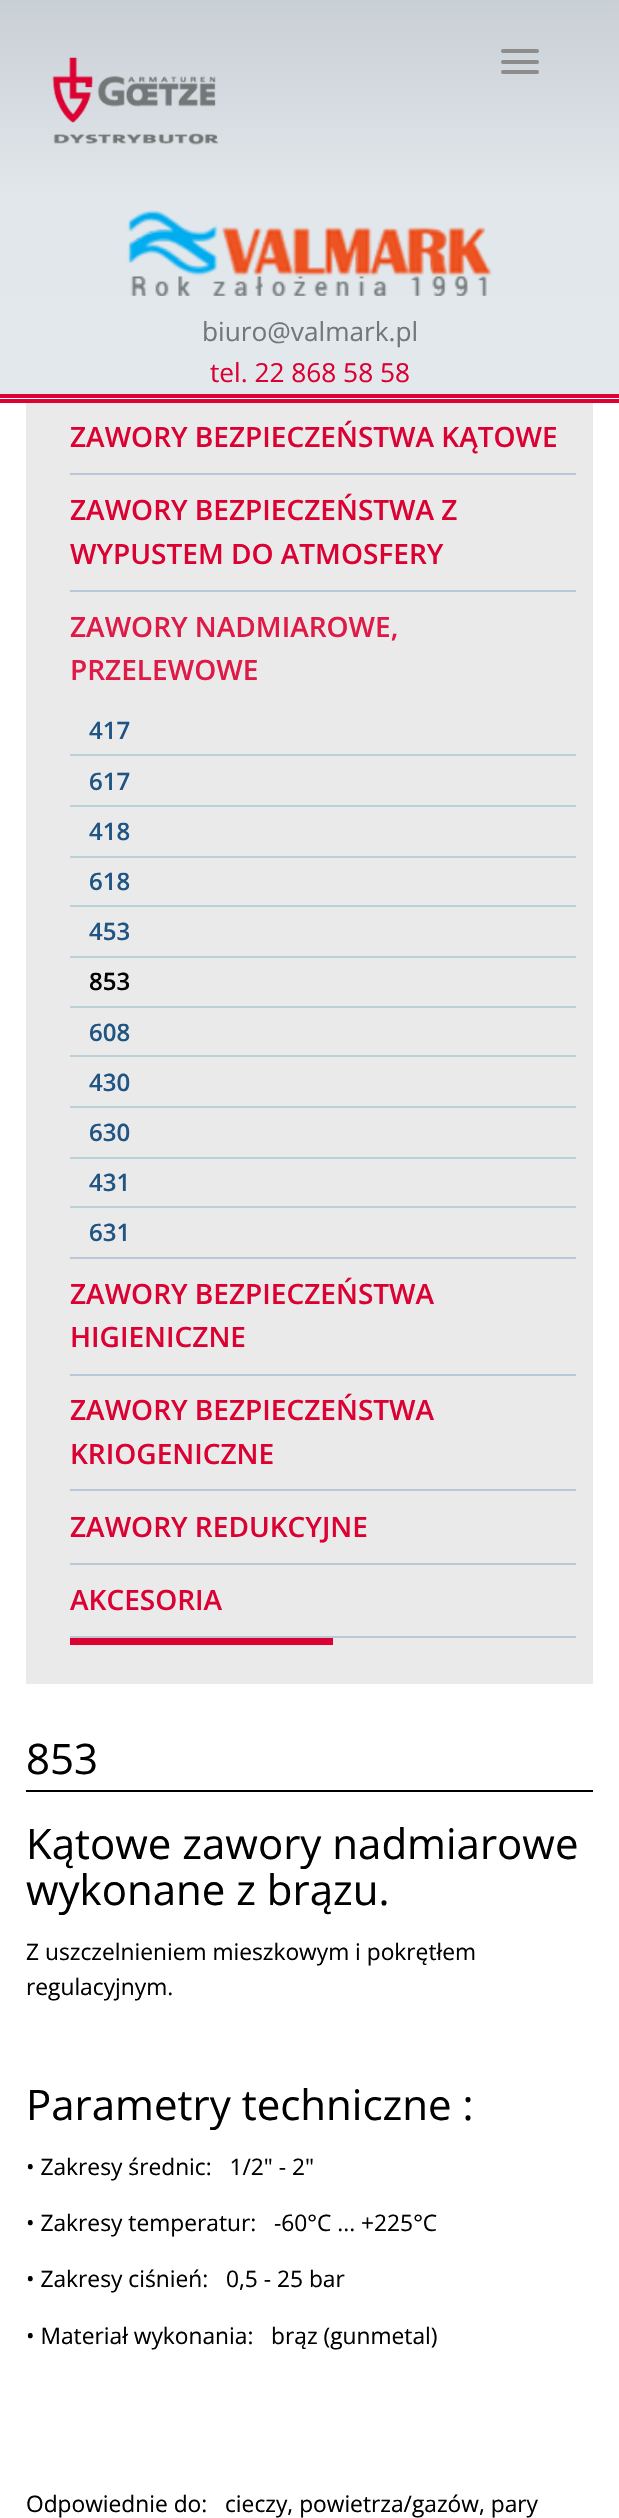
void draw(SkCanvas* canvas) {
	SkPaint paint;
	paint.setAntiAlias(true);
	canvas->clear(0xffffffff);
	paint.setColor(0xffdb0132);
	canvas->drawRect(SkRect::MakeXYWH(0, 399, 619, 4), paint);
	{
		const SkColor colors[] = {0xffc8cfd5, 0xffe2e7eb, 0xffe3e8ec};
		const float stops[] = {0, 0.5, 1};
		const SkPoint ends[] = {{310, 0}, {310, 394}};
		paint.setShader(SkGradientShader::MakeLinear(ends, colors, stops, 3, SkTileMode::kClamp));
		paint.setAlpha(255);
	}
	canvas->drawRect(SkRect::MakeXYWH(26, 0, 567, 394), paint);
	{
		const SkColor colors[] = {0xffc8cfd5, 0xffe2e7eb, 0xffe3e8ec};
		const float stops[] = {0, 0.5, 1};
		const SkPoint ends[] = {{-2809, 0}, {-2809, 394}};
		paint.setShader(SkGradientShader::MakeLinear(ends, colors, stops, 3, SkTileMode::kClamp));
		paint.setAlpha(255);
	}
	canvas->drawRect(SkRect::MakeXYWH(0, 0, 26, 394), paint);
	canvas->drawImageRect(SkImages::DeferredFromEncodedData(SkData::MakeFromFileName("img1.png")), SkRect::MakeXYWH(52, 57, 167, 88), SkSamplingOptions());
	paint.setShader(nullptr);
	paint.setColor(0xff8c8c8c);
	canvas->drawRoundRect(SkRect::MakeXYWH(501, 49, 38, 4), 2, 2, paint);
	canvas->drawRoundRect(SkRect::MakeXYWH(501, 60, 38, 4), 2, 2, paint);
	canvas->drawRoundRect(SkRect::MakeXYWH(501, 70, 38, 4), 2, 2, paint);
	{
		const SkColor colors[] = {0xffc8cfd5, 0xffe2e7eb, 0xffe3e8ec};
		const float stops[] = {0, 0.5, 1};
		const SkPoint ends[] = {{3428, 0}, {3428, 394}};
		paint.setShader(SkGradientShader::MakeLinear(ends, colors, stops, 3, SkTileMode::kClamp));
		paint.setAlpha(255);
	}
	canvas->drawRect(SkRect::MakeXYWH(593, 0, 26, 394), paint);
	canvas->drawImageRect(SkImages::DeferredFromEncodedData(SkData::MakeFromFileName("img2.png")), SkRect::MakeXYWH(127, 210, 365, 86), SkSamplingOptions());
	SkFont f1(fontMgr->matchFamilyStyle("Open Sans", SkFontStyle::Normal()), 26.25);
	f1.setSubpixel(true);
	paint.setShader(nullptr);
	paint.setColor(0xff717878);
	canvas->drawString("biuro@valmark.pl", 202, 341, f1, paint);
	paint.setColor(0xffdb0132);
	canvas->drawString("tel. 22 868 58 58", 210, 382, f1, paint);
	canvas->drawRect(SkRect::MakeXYWH(0, 394, 619, 4), paint);
	paint.setColor(0xffeaeaea);
	canvas->drawRect(SkRect::MakeXYWH(26, 403, 567, 1281), paint);
	paint.setColor(0xffb9c8d6);
	canvas->drawRect(SkRect::MakeXYWH(70, 473, 506, 2), paint);
	SkFont f2(fontMgr->matchFamilyStyle("Open Sans", SkFontStyle(600, SkFontStyle::kNormal_Width, SkFontStyle::kUpright_Slant)), 28);
	f2.setSubpixel(true);
	paint.setColor(0xffdb0132);
	canvas->drawString("ZAWORY BEZPIECZEŃSTWA KĄTOWE", 70, 447, f2, paint);
	paint.setColor(0xffb9c8d6);
	canvas->drawRect(SkRect::MakeXYWH(70, 590, 506, 2), paint);
	paint.setColor(0xffdb0132);
	canvas->drawString("ZAWORY BEZPIECZEŃSTWA Z", 70, 520, f2, paint);
	canvas->drawString("WYPUSTEM DO ATMOSFERY", 70, 564, f2, paint);
	paint.setColor(0xffb9c8d6);
	canvas->drawRect(SkRect::MakeXYWH(70, 1257, 506, 2), paint);
	paint.setColor(0xffdf1a46);
	canvas->drawString("ZAWORY NADMIAROWE,", 70, 637, f2, paint);
	canvas->drawString("PRZELEWOWE", 70, 680, f2, paint);
	paint.setColor(0xffbbd1d6);
	canvas->drawRect(SkRect::MakeXYWH(70, 754, 506, 2), paint);
	SkFont f3(fontMgr->matchFamilyStyle("Open Sans", SkFontStyle(600, SkFontStyle::kNormal_Width, SkFontStyle::kUpright_Slant)), 24);
	f3.setSubpixel(true);
	paint.setColor(0xff1f5483);
	canvas->drawString("417", 89, 739, f3, paint);
	paint.setColor(0xffbbd1d6);
	canvas->drawRect(SkRect::MakeXYWH(70, 805, 506, 2), paint);
	paint.setColor(0xff1f5483);
	canvas->drawString("617", 89, 790, f3, paint);
	paint.setColor(0xffbbd1d6);
	canvas->drawRect(SkRect::MakeXYWH(70, 856, 506, 2), paint);
	paint.setColor(0xff1f5483);
	canvas->drawString("418", 89, 840, f3, paint);
	paint.setColor(0xffbbd1d6);
	canvas->drawRect(SkRect::MakeXYWH(70, 905, 506, 2), paint);
	paint.setColor(0xff1f5483);
	canvas->drawString("618", 89, 890, f3, paint);
	paint.setColor(0xffbbd1d6);
	canvas->drawRect(SkRect::MakeXYWH(70, 956, 506, 2), paint);
	paint.setColor(0xff1f5483);
	canvas->drawString("453", 89, 940, f3, paint);
	paint.setColor(0xffbbd1d6);
	canvas->drawRect(SkRect::MakeXYWH(70, 1006, 506, 2), paint);
	paint.setColor(0xff000000);
	canvas->drawString("853", 89, 990, f3, paint);
	paint.setColor(0xffbbd1d6);
	canvas->drawRect(SkRect::MakeXYWH(70, 1055, 506, 2), paint);
	paint.setColor(0xff1f5483);
	canvas->drawString("608", 89, 1041, f3, paint);
	paint.setColor(0xffbbd1d6);
	canvas->drawRect(SkRect::MakeXYWH(70, 1106, 506, 2), paint);
	paint.setColor(0xff1f5483);
	canvas->drawString("430", 89, 1091, f3, paint);
	paint.setColor(0xffbbd1d6);
	canvas->drawRect(SkRect::MakeXYWH(70, 1157, 506, 2), paint);
	paint.setColor(0xff1f5483);
	canvas->drawString("630", 89, 1141, f3, paint);
	paint.setColor(0xffbbd1d6);
	canvas->drawRect(SkRect::MakeXYWH(70, 1206, 506, 2), paint);
	paint.setColor(0xff1f5483);
	canvas->drawString("431", 89, 1191, f3, paint);
	canvas->drawString("631", 89, 1241, f3, paint);
	paint.setColor(0xffb9c8d6);
	canvas->drawRect(SkRect::MakeXYWH(70, 1374, 506, 2), paint);
	paint.setColor(0xffdb0132);
	canvas->drawString("ZAWORY BEZPIECZEŃSTWA", 70, 1304, f2, paint);
	canvas->drawString("HIGIENICZNE", 70, 1347, f2, paint);
	paint.setColor(0xffb9c8d6);
	canvas->drawRect(SkRect::MakeXYWH(70, 1489, 506, 2), paint);
	paint.setColor(0xffdb0132);
	canvas->drawString("ZAWORY BEZPIECZEŃSTWA", 70, 1420, f2, paint);
	canvas->drawString("KRIOGENICZNE", 70, 1464, f2, paint);
	paint.setColor(0xffb9c8d6);
	canvas->drawRect(SkRect::MakeXYWH(70, 1563, 506, 2), paint);
	paint.setColor(0xffdb0132);
	canvas->drawString("ZAWORY REDUKCYJNE", 70, 1537, f2, paint);
	paint.setColor(0xffb9c8d6);
	canvas->drawRect(SkRect::MakeXYWH(70, 1636, 506, 2), paint);
	paint.setColor(0xffdb0132);
	canvas->drawString("AKCESORIA", 70, 1610, f2, paint);
	canvas->drawRect(SkRect::MakeXYWH(70, 1638, 263, 7), paint);
	paint.setColor(0xff000000);
	canvas->drawRect(SkRect::MakeXYWH(26, 1790, 567, 2), paint);
	SkFont f4(fontMgr->matchFamilyStyle("Open Sans", SkFontStyle::Normal()), 42);
	f4.setSubpixel(true);
	canvas->drawString("853", 26, 1774, f4, paint);
	canvas->drawString("Kątowe zawory nadmiarowe", 26, 1859, f4, paint);
	canvas->drawString("wykonane z brązu.", 26, 1905, f4, paint);
	SkFont f5(fontMgr->matchFamilyStyle("Open Sans", SkFontStyle::Normal()), 22.75);
	f5.setSubpixel(true);
	canvas->drawString("Z uszczelnieniem mieszkowym i pokrętłem", 26, 1960, f5, paint);
	canvas->drawString("regulacyjnym.", 26, 1995, f5, paint);
	canvas->drawString("Parametry techniczne :", 26, 2120, f4, paint);
	canvas->drawString("• Zakresy średnic:   1/2\" - 2\"", 26, 2175, f5, paint);
	canvas->drawString("• Zakresy temperatur:   -60°C ... +225°C", 26, 2231, f5, paint);
	canvas->drawString("• Zakresy ciśnień:   0,5 - 25 bar", 26, 2287, f5, paint);
	canvas->drawString("• Materiał wykonania:   brąz (gunmetal)", 26, 2344, f5, paint);
	canvas->drawString("Odpowiednie do:   cieczy, powietrza/gazów, pary", 26, 2512, f5, paint);
}
